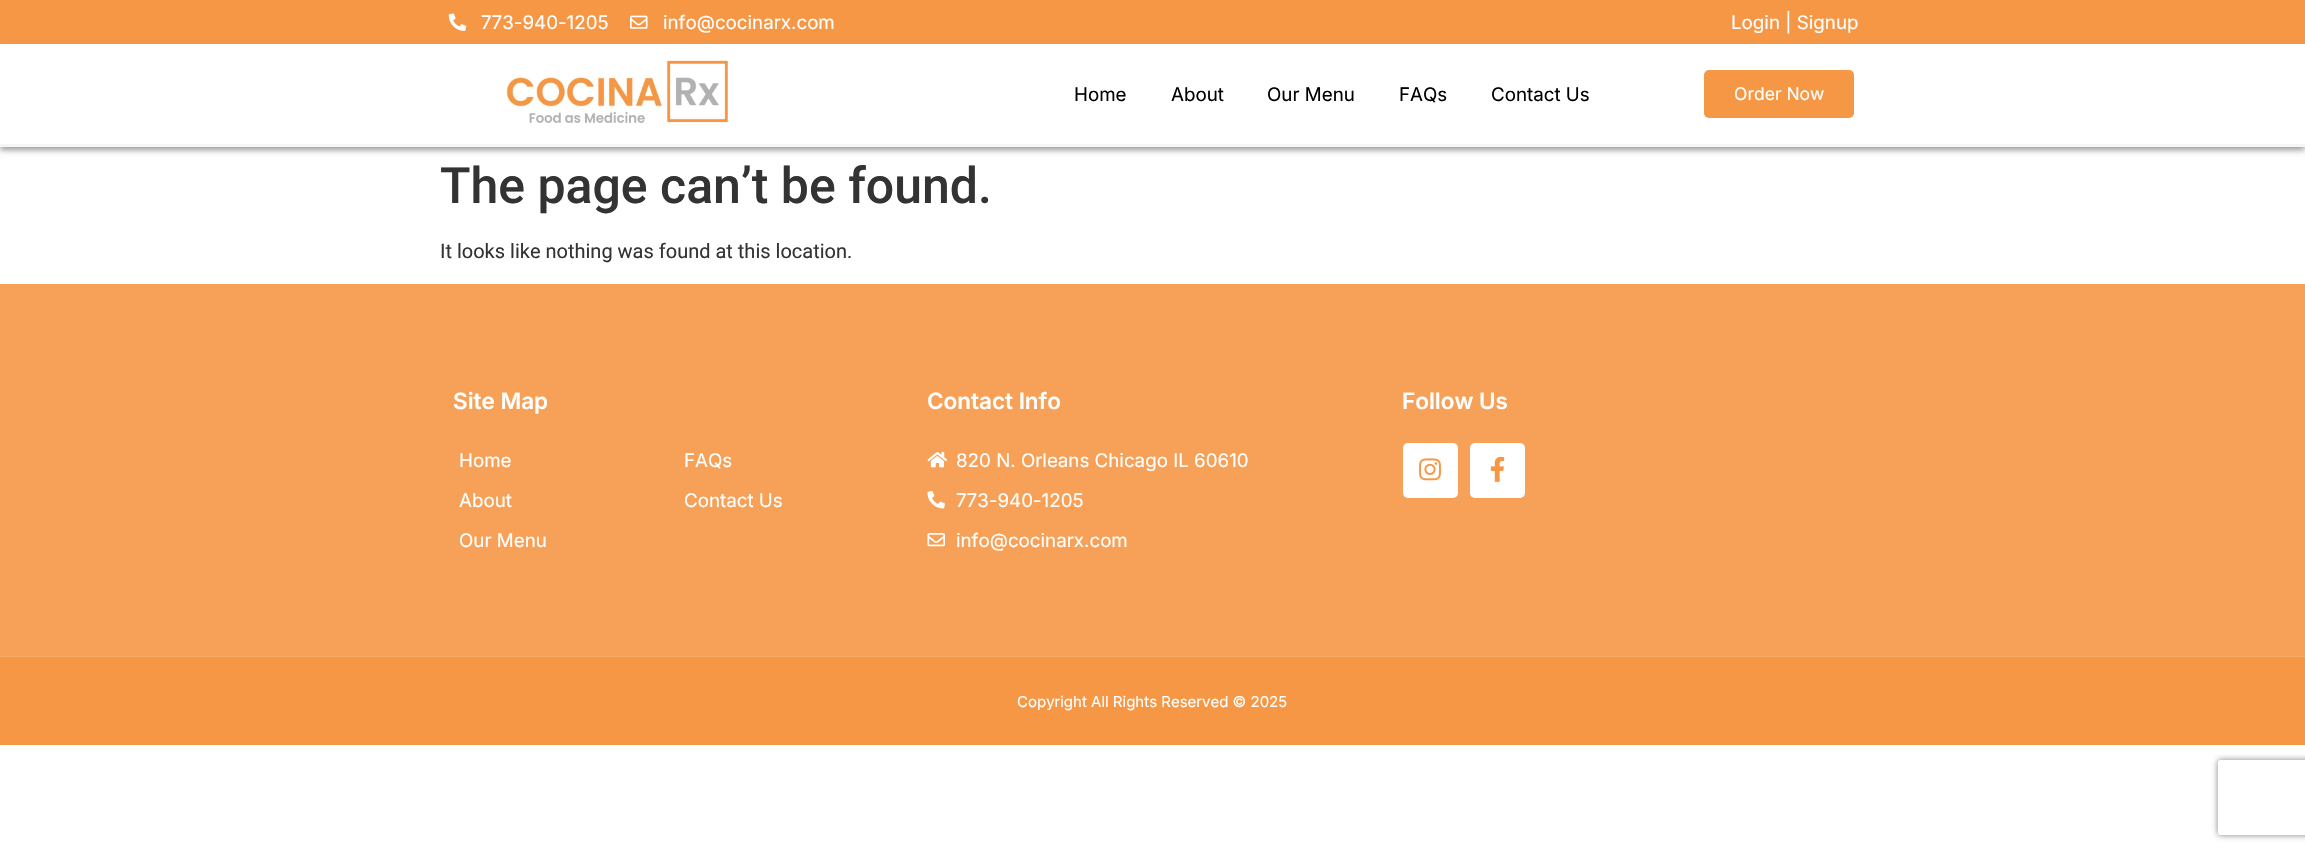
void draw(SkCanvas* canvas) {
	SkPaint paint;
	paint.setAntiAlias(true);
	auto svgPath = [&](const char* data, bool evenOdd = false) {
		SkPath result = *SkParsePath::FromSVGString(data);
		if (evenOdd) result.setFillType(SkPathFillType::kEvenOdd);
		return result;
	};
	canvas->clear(0xffffffff);
	paint.setColor(0xfff69745);
	canvas->drawRect(SkRect::MakeXYWH(0, 0, 2305, 44), paint);
	canvas->drawImageRect(SkImages::DeferredFromEncodedData(SkData::MakeFromFileName("img1.png")), SkRect::MakeXYWH(448, 13, 19, 18), SkSamplingOptions());
	SkFont f1(fontMgr->matchFamilyStyle("Inter", SkFontStyle::Normal()), 18.75);
	f1.setSubpixel(true);
	paint.setColor(0xffffffff);
	canvas->drawString("773-940-1205", 481, 29, f1, paint);
	canvas->drawImageRect(SkImages::DeferredFromEncodedData(SkData::MakeFromFileName("img2.png")), SkRect::MakeXYWH(630, 15, 18, 14), SkSamplingOptions());
	canvas->drawString("info@cocinarx.com", 663, 29, f1, paint);
	canvas->drawString("Login | Signup", 1731, 29, f1, paint);
	canvas->save();
	canvas->clipPath(svgPath("M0 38H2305V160H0ZM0 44H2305V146H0Z", true), true);
	paint.setColor(0xff999999);
	paint.setMaskFilter(SkMaskFilter::MakeBlur(kNormal_SkBlurStyle, 3));
	canvas->drawRect(SkRect::MakeXYWH(0, 48, 2305, 102), paint);
	paint.setMaskFilter(nullptr);
	canvas->restore();
	paint.setColor(0xfff6f6f6);
	canvas->drawRect(SkRect::MakeXYWH(0, 144, 2305, 3), paint);
	canvas->drawImageRect(SkImages::DeferredFromEncodedData(SkData::MakeFromFileName("img3.png")), SkRect::MakeXYWH(506, 60, 222, 63), SkSamplingOptions());
	paint.setColor(0xff000000);
	canvas->drawString("Home", 1074, 101, f1, paint);
	canvas->drawString("About", 1171, 101, f1, paint);
	canvas->drawString("Our Menu", 1267, 101, f1, paint);
	canvas->drawString("FAQs", 1399, 101, f1, paint);
	canvas->drawString("Contact Us", 1491, 101, f1, paint);
	paint.setColor(0xfff69745);
	canvas->drawRoundRect(SkRect::MakeXYWH(1704, 70, 150, 48), 5, 5, paint);
	SkFont f2(fontMgr->matchFamilyStyle("Inter", SkFontStyle::Normal()), 17.5);
	f2.setSubpixel(true);
	paint.setColor(0xffffffff);
	canvas->drawString("Order Now", 1734, 100, f2, paint);
	SkFont f3(fontMgr->matchFamilyStyle("Roboto", SkFontStyle(500, SkFontStyle::kNormal_Width, SkFontStyle::kUpright_Slant)), 50);
	f3.setSubpixel(true);
	paint.setColor(0xff333333);
	canvas->drawString("The page can’t be found.", 440, 203, f3, paint);
	SkFont f4(fontMgr->matchFamilyStyle("Roboto", SkFontStyle::Normal()), 20);
	f4.setSubpixel(true);
	canvas->drawString("It looks like nothing was found at this location.", 440, 258, f4, paint);
	paint.setColor(0xfff6a157);
	canvas->drawRect(SkRect::MakeXYWH(0, 284, 2305, 372), paint);
	SkFont f5(fontMgr->matchFamilyStyle("Inter", SkFontStyle(600, SkFontStyle::kNormal_Width, SkFontStyle::kUpright_Slant)), 22.5);
	f5.setSubpixel(true);
	paint.setColor(0xffffffff);
	canvas->drawString("Site Map", 453, 409, f5, paint);
	canvas->drawString("Home", 459, 467, f1, paint);
	canvas->drawString("About", 459, 507, f1, paint);
	canvas->drawString("Our Menu", 459, 547, f1, paint);
	canvas->drawString("FAQs", 684, 467, f1, paint);
	canvas->drawString("Contact Us", 684, 507, f1, paint);
	canvas->drawString("Contact Info", 927, 409, f5, paint);
	canvas->drawImageRect(SkImages::DeferredFromEncodedData(SkData::MakeFromFileName("img4.png")), SkRect::MakeXYWH(927, 452, 21, 16), SkSamplingOptions());
	canvas->drawString("820 N. Orleans Chicago IL 60610", 956, 467, f1, paint);
	canvas->drawImageRect(SkImages::DeferredFromEncodedData(SkData::MakeFromFileName("img5.png")), SkRect::MakeXYWH(927, 491, 18, 18), SkSamplingOptions());
	canvas->drawString("773-940-1205", 956, 507, f1, paint);
	canvas->drawImageRect(SkImages::DeferredFromEncodedData(SkData::MakeFromFileName("img6.png")), SkRect::MakeXYWH(927, 533, 18, 14), SkSamplingOptions());
	canvas->drawString("info@cocinarx.com", 956, 547, f1, paint);
	canvas->drawString("Follow Us", 1402, 409, f5, paint);
	canvas->drawRoundRect(SkRect::MakeXYWH(1403, 443, 55, 55), 5, 5, paint);
	canvas->drawImageRect(SkImages::DeferredFromEncodedData(SkData::MakeFromFileName("img7.png")), SkRect::MakeXYWH(1419, 458, 22, 23), SkSamplingOptions());
	canvas->drawRoundRect(SkRect::MakeXYWH(1470, 443, 55, 55), 5, 5, paint);
	canvas->drawImageRect(SkImages::DeferredFromEncodedData(SkData::MakeFromFileName("img8.png")), SkRect::MakeXYWH(1490, 456, 15, 26), SkSamplingOptions());
	paint.setColor(0xfff69745);
	canvas->drawRect(SkRect::MakeXYWH(0, 657, 2305, 88), paint);
	paint.setColor(0xfff8ab68);
	canvas->drawRect(SkRect::MakeXYWH(0, 656, 2305, 1), paint);
	SkFont f6(fontMgr->matchFamilyStyle("Inter", SkFontStyle::Normal()), 15);
	f6.setSubpixel(true);
	paint.setColor(0xffffffff);
	canvas->drawString("Copyright All Rights Reserved © 2025", 1017, 707, f6, paint);
	canvas->save();
	canvas->clipPath(svgPath("M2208 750H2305V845H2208ZM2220.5 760H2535.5C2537 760 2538 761 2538 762.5V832.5C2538 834 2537 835 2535.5 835H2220.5C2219 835 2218 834 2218 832.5V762.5C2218 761 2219 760 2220.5 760Z", true), true);
	paint.setColor(0xff808080);
	paint.setMaskFilter(SkMaskFilter::MakeBlur(kNormal_SkBlurStyle, 3));
	canvas->drawRoundRect(SkRect::MakeXYWH(2218, 760, 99, 75), 2.5, 2.5, paint);
	paint.setMaskFilter(nullptr);
	canvas->restore();
}
